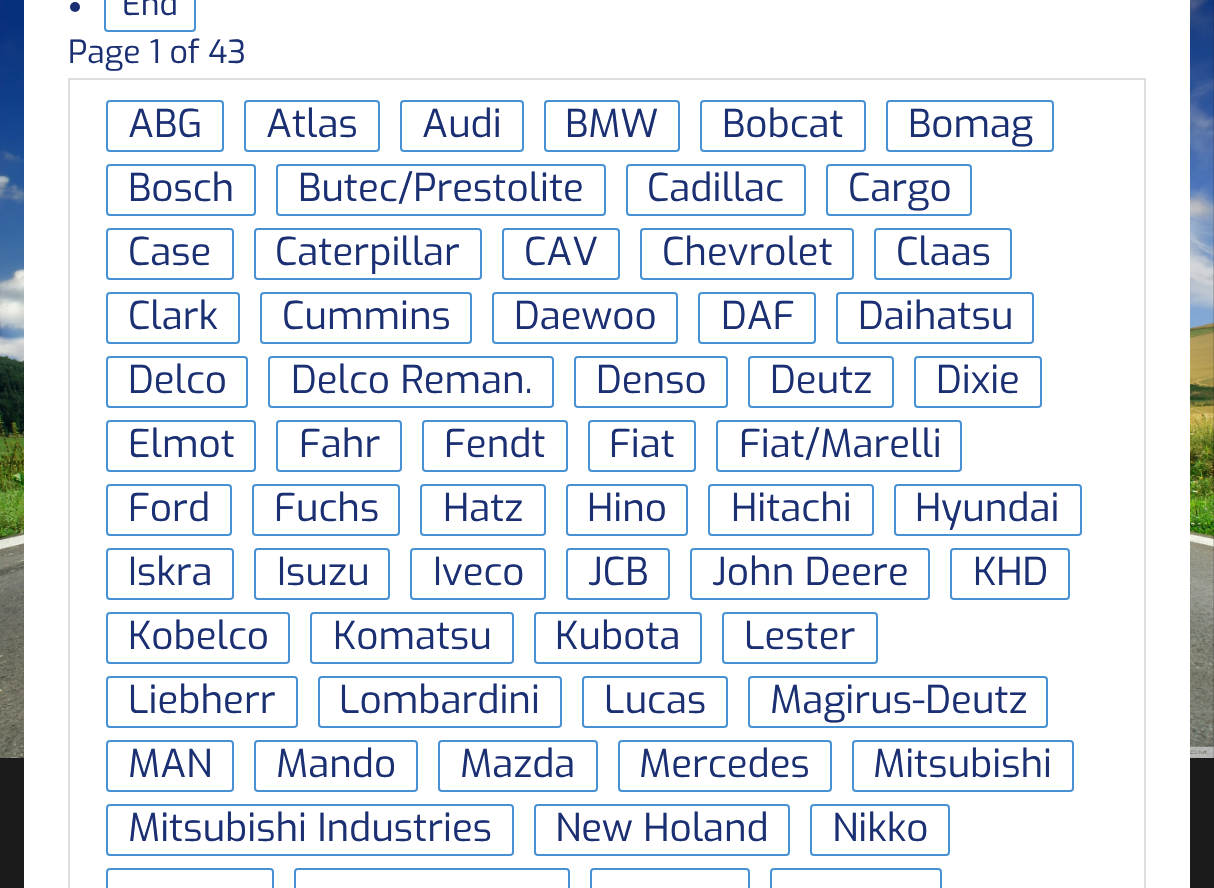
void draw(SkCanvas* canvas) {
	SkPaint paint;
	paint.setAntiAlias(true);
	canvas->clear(0xff1b1b1b);
	canvas->drawImageRect(SkImages::DeferredFromEncodedData(SkData::MakeFromFileName("img1.png")), SkRect::MakeXYWH(0, 0, 1214, 758), SkSamplingOptions());
	paint.setColor(0xffffffff);
	canvas->drawRect(SkRect::MakeXYWH(24, 0, 1166, 888), paint);
	paint.setColor(0xff1b2f73);
	canvas->drawCircle(75, 7, 5, paint);
	paint.setStroke(true);
	paint.setStrokeWidth(2);
	paint.setColor(0xff4691d4);
	canvas->drawRoundRect(SkRect::MakeXYWH(105, -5, 90, 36), 3, 3, paint);
	SkFont f1(fontMgr->matchFamilyStyle("Exo", SkFontStyle::Normal()), 32);
	f1.setSubpixel(true);
	paint.setStroke(false);
	paint.setColor(0xff1b2f73);
	canvas->drawString("End", 122, 15, f1, paint);
	canvas->drawString("Page 1 of 43", 68, 63, f1, paint);
	paint.setStroke(true);
	paint.setColor(0xffdddddd);
	canvas->drawRect(SkRect::MakeXYWH(69, 79, 1076, 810), paint);
	paint.setColor(0xff4691d4);
	canvas->drawRoundRect(SkRect::MakeXYWH(107, 101, 116, 50), 3, 3, paint);
	SkFont f2(fontMgr->matchFamilyStyle("Exo", SkFontStyle::Normal()), 38.5);
	f2.setSubpixel(true);
	paint.setStroke(false);
	paint.setColor(0xff1b2f73);
	canvas->drawString("ABG", 128, 137, f2, paint);
	paint.setStroke(true);
	paint.setColor(0xff4691d4);
	canvas->drawRoundRect(SkRect::MakeXYWH(245, 101, 134, 50), 3, 3, paint);
	paint.setStroke(false);
	paint.setColor(0xff1b2f73);
	canvas->drawString("Atlas", 266, 137, f2, paint);
	paint.setStroke(true);
	paint.setColor(0xff4691d4);
	canvas->drawRoundRect(SkRect::MakeXYWH(401, 101, 122, 50), 3, 3, paint);
	paint.setStroke(false);
	paint.setColor(0xff1b2f73);
	canvas->drawString("Audi", 422, 137, f2, paint);
	paint.setStroke(true);
	paint.setColor(0xff4691d4);
	canvas->drawRoundRect(SkRect::MakeXYWH(545, 101, 134, 50), 3, 3, paint);
	paint.setStroke(false);
	paint.setColor(0xff1b2f73);
	canvas->drawString("BMW", 565, 137, f2, paint);
	paint.setStroke(true);
	paint.setColor(0xff4691d4);
	canvas->drawRoundRect(SkRect::MakeXYWH(701, 101, 164, 50), 3, 3, paint);
	paint.setStroke(false);
	paint.setColor(0xff1b2f73);
	canvas->drawString("Bobcat", 722, 137, f2, paint);
	paint.setStroke(true);
	paint.setColor(0xff4691d4);
	canvas->drawRoundRect(SkRect::MakeXYWH(887, 101, 166, 50), 3, 3, paint);
	paint.setStroke(false);
	paint.setColor(0xff1b2f73);
	canvas->drawString("Bomag", 908, 137, f2, paint);
	paint.setStroke(true);
	paint.setColor(0xff4691d4);
	canvas->drawRoundRect(SkRect::MakeXYWH(107, 165, 148, 50), 3, 3, paint);
	paint.setStroke(false);
	paint.setColor(0xff1b2f73);
	canvas->drawString("Bosch", 128, 201, f2, paint);
	paint.setStroke(true);
	paint.setColor(0xff4691d4);
	canvas->drawRoundRect(SkRect::MakeXYWH(277, 165, 328, 50), 3, 3, paint);
	paint.setStroke(false);
	paint.setColor(0xff1b2f73);
	canvas->drawString("Butec/Prestolite", 298, 201, f2, paint);
	paint.setStroke(true);
	paint.setColor(0xff4691d4);
	canvas->drawRoundRect(SkRect::MakeXYWH(627, 165, 178, 50), 3, 3, paint);
	paint.setStroke(false);
	paint.setColor(0xff1b2f73);
	canvas->drawString("Cadillac", 647, 201, f2, paint);
	paint.setStroke(true);
	paint.setColor(0xff4691d4);
	canvas->drawRoundRect(SkRect::MakeXYWH(827, 165, 144, 50), 3, 3, paint);
	paint.setStroke(false);
	paint.setColor(0xff1b2f73);
	canvas->drawString("Cargo", 848, 201, f2, paint);
	paint.setStroke(true);
	paint.setColor(0xff4691d4);
	canvas->drawRoundRect(SkRect::MakeXYWH(107, 229, 126, 50), 3, 3, paint);
	paint.setStroke(false);
	paint.setColor(0xff1b2f73);
	canvas->drawString("Case", 128, 265, f2, paint);
	paint.setStroke(true);
	paint.setColor(0xff4691d4);
	canvas->drawRoundRect(SkRect::MakeXYWH(255, 229, 226, 50), 3, 3, paint);
	paint.setStroke(false);
	paint.setColor(0xff1b2f73);
	canvas->drawString("Caterpillar", 275, 265, f2, paint);
	paint.setStroke(true);
	paint.setColor(0xff4691d4);
	canvas->drawRoundRect(SkRect::MakeXYWH(503, 229, 116, 50), 3, 3, paint);
	paint.setStroke(false);
	paint.setColor(0xff1b2f73);
	canvas->drawString("CAV", 524, 265, f2, paint);
	paint.setStroke(true);
	paint.setColor(0xff4691d4);
	canvas->drawRoundRect(SkRect::MakeXYWH(641, 229, 212, 50), 3, 3, paint);
	paint.setStroke(false);
	paint.setColor(0xff1b2f73);
	canvas->drawString("Chevrolet", 662, 265, f2, paint);
	paint.setStroke(true);
	paint.setColor(0xff4691d4);
	canvas->drawRoundRect(SkRect::MakeXYWH(875, 229, 136, 50), 3, 3, paint);
	paint.setStroke(false);
	paint.setColor(0xff1b2f73);
	canvas->drawString("Claas", 896, 265, f2, paint);
	paint.setStroke(true);
	paint.setColor(0xff4691d4);
	canvas->drawRoundRect(SkRect::MakeXYWH(107, 293, 132, 50), 3, 3, paint);
	paint.setStroke(false);
	paint.setColor(0xff1b2f73);
	canvas->drawString("Clark", 128, 329, f2, paint);
	paint.setStroke(true);
	paint.setColor(0xff4691d4);
	canvas->drawRoundRect(SkRect::MakeXYWH(261, 293, 210, 50), 3, 3, paint);
	paint.setStroke(false);
	paint.setColor(0xff1b2f73);
	canvas->drawString("Cummins", 282, 329, f2, paint);
	paint.setStroke(true);
	paint.setColor(0xff4691d4);
	canvas->drawRoundRect(SkRect::MakeXYWH(493, 293, 184, 50), 3, 3, paint);
	paint.setStroke(false);
	paint.setColor(0xff1b2f73);
	canvas->drawString("Daewoo", 514, 329, f2, paint);
	paint.setStroke(true);
	paint.setColor(0xff4691d4);
	canvas->drawRoundRect(SkRect::MakeXYWH(699, 293, 116, 50), 3, 3, paint);
	paint.setStroke(false);
	paint.setColor(0xff1b2f73);
	canvas->drawString("DAF", 721, 329, f2, paint);
	paint.setStroke(true);
	paint.setColor(0xff4691d4);
	canvas->drawRoundRect(SkRect::MakeXYWH(837, 293, 196, 50), 3, 3, paint);
	paint.setStroke(false);
	paint.setColor(0xff1b2f73);
	canvas->drawString("Daihatsu", 858, 329, f2, paint);
	paint.setStroke(true);
	paint.setColor(0xff4691d4);
	canvas->drawRoundRect(SkRect::MakeXYWH(107, 357, 140, 50), 3, 3, paint);
	paint.setStroke(false);
	paint.setColor(0xff1b2f73);
	canvas->drawString("Delco", 128, 393, f2, paint);
	paint.setStroke(true);
	paint.setColor(0xff4691d4);
	canvas->drawRoundRect(SkRect::MakeXYWH(269, 357, 284, 50), 3, 3, paint);
	paint.setStroke(false);
	paint.setColor(0xff1b2f73);
	canvas->drawString("Delco Reman.", 291, 393, f2, paint);
	paint.setStroke(true);
	paint.setColor(0xff4691d4);
	canvas->drawRoundRect(SkRect::MakeXYWH(575, 357, 152, 50), 3, 3, paint);
	paint.setStroke(false);
	paint.setColor(0xff1b2f73);
	canvas->drawString("Denso", 596, 393, f2, paint);
	paint.setStroke(true);
	paint.setColor(0xff4691d4);
	canvas->drawRoundRect(SkRect::MakeXYWH(749, 357, 144, 50), 3, 3, paint);
	paint.setStroke(false);
	paint.setColor(0xff1b2f73);
	canvas->drawString("Deutz", 770, 393, f2, paint);
	paint.setStroke(true);
	paint.setColor(0xff4691d4);
	canvas->drawRoundRect(SkRect::MakeXYWH(915, 357, 126, 50), 3, 3, paint);
	paint.setStroke(false);
	paint.setColor(0xff1b2f73);
	canvas->drawString("Dixie", 936, 393, f2, paint);
	paint.setStroke(true);
	paint.setColor(0xff4691d4);
	canvas->drawRoundRect(SkRect::MakeXYWH(107, 421, 148, 50), 3, 3, paint);
	paint.setStroke(false);
	paint.setColor(0xff1b2f73);
	canvas->drawString("Elmot", 128, 457, f2, paint);
	paint.setStroke(true);
	paint.setColor(0xff4691d4);
	canvas->drawRoundRect(SkRect::MakeXYWH(277, 421, 124, 50), 3, 3, paint);
	paint.setStroke(false);
	paint.setColor(0xff1b2f73);
	canvas->drawString("Fahr", 299, 457, f2, paint);
	paint.setStroke(true);
	paint.setColor(0xff4691d4);
	canvas->drawRoundRect(SkRect::MakeXYWH(423, 421, 144, 50), 3, 3, paint);
	paint.setStroke(false);
	paint.setColor(0xff1b2f73);
	canvas->drawString("Fendt", 444, 457, f2, paint);
	paint.setStroke(true);
	paint.setColor(0xff4691d4);
	canvas->drawRoundRect(SkRect::MakeXYWH(589, 421, 106, 50), 3, 3, paint);
	paint.setStroke(false);
	paint.setColor(0xff1b2f73);
	canvas->drawString("Fiat", 609, 457, f2, paint);
	paint.setStroke(true);
	paint.setColor(0xff4691d4);
	canvas->drawRoundRect(SkRect::MakeXYWH(717, 421, 244, 50), 3, 3, paint);
	paint.setStroke(false);
	paint.setColor(0xff1b2f73);
	canvas->drawString("Fiat/Marelli", 739, 457, f2, paint);
	paint.setStroke(true);
	paint.setColor(0xff4691d4);
	canvas->drawRoundRect(SkRect::MakeXYWH(107, 485, 124, 50), 3, 3, paint);
	paint.setStroke(false);
	paint.setColor(0xff1b2f73);
	canvas->drawString("Ford", 128, 521, f2, paint);
	paint.setStroke(true);
	paint.setColor(0xff4691d4);
	canvas->drawRoundRect(SkRect::MakeXYWH(253, 485, 146, 50), 3, 3, paint);
	paint.setStroke(false);
	paint.setColor(0xff1b2f73);
	canvas->drawString("Fuchs", 274, 521, f2, paint);
	paint.setStroke(true);
	paint.setColor(0xff4691d4);
	canvas->drawRoundRect(SkRect::MakeXYWH(421, 485, 124, 50), 3, 3, paint);
	paint.setStroke(false);
	paint.setColor(0xff1b2f73);
	canvas->drawString("Hatz", 443, 521, f2, paint);
	paint.setStroke(true);
	paint.setColor(0xff4691d4);
	canvas->drawRoundRect(SkRect::MakeXYWH(567, 485, 120, 50), 3, 3, paint);
	paint.setStroke(false);
	paint.setColor(0xff1b2f73);
	canvas->drawString("Hino", 587, 521, f2, paint);
	paint.setStroke(true);
	paint.setColor(0xff4691d4);
	canvas->drawRoundRect(SkRect::MakeXYWH(709, 485, 164, 50), 3, 3, paint);
	paint.setStroke(false);
	paint.setColor(0xff1b2f73);
	canvas->drawString("Hitachi", 731, 521, f2, paint);
	paint.setStroke(true);
	paint.setColor(0xff4691d4);
	canvas->drawRoundRect(SkRect::MakeXYWH(895, 485, 186, 50), 3, 3, paint);
	paint.setStroke(false);
	paint.setColor(0xff1b2f73);
	canvas->drawString("Hyundai", 915, 521, f2, paint);
	paint.setStroke(true);
	paint.setColor(0xff4691d4);
	canvas->drawRoundRect(SkRect::MakeXYWH(107, 549, 126, 50), 3, 3, paint);
	paint.setStroke(false);
	paint.setColor(0xff1b2f73);
	canvas->drawString("Iskra", 128, 585, f2, paint);
	paint.setStroke(true);
	paint.setColor(0xff4691d4);
	canvas->drawRoundRect(SkRect::MakeXYWH(255, 549, 134, 50), 3, 3, paint);
	paint.setStroke(false);
	paint.setColor(0xff1b2f73);
	canvas->drawString("Isuzu", 277, 585, f2, paint);
	paint.setStroke(true);
	paint.setColor(0xff4691d4);
	canvas->drawRoundRect(SkRect::MakeXYWH(411, 549, 134, 50), 3, 3, paint);
	paint.setStroke(false);
	paint.setColor(0xff1b2f73);
	canvas->drawString("Iveco", 433, 585, f2, paint);
	paint.setStroke(true);
	paint.setColor(0xff4691d4);
	canvas->drawRoundRect(SkRect::MakeXYWH(567, 549, 102, 50), 3, 3, paint);
	paint.setStroke(false);
	paint.setColor(0xff1b2f73);
	canvas->drawString("JCB", 588, 585, f2, paint);
	paint.setStroke(true);
	paint.setColor(0xff4691d4);
	canvas->drawRoundRect(SkRect::MakeXYWH(691, 549, 238, 50), 3, 3, paint);
	paint.setStroke(false);
	paint.setColor(0xff1b2f73);
	canvas->drawString("John Deere", 712, 585, f2, paint);
	paint.setStroke(true);
	paint.setColor(0xff4691d4);
	canvas->drawRoundRect(SkRect::MakeXYWH(951, 549, 118, 50), 3, 3, paint);
	paint.setStroke(false);
	paint.setColor(0xff1b2f73);
	canvas->drawString("KHD", 973, 585, f2, paint);
	paint.setStroke(true);
	paint.setColor(0xff4691d4);
	canvas->drawRoundRect(SkRect::MakeXYWH(107, 613, 182, 50), 3, 3, paint);
	paint.setStroke(false);
	paint.setColor(0xff1b2f73);
	canvas->drawString("Kobelco", 128, 649, f2, paint);
	paint.setStroke(true);
	paint.setColor(0xff4691d4);
	canvas->drawRoundRect(SkRect::MakeXYWH(311, 613, 202, 50), 3, 3, paint);
	paint.setStroke(false);
	paint.setColor(0xff1b2f73);
	canvas->drawString("Komatsu", 333, 649, f2, paint);
	paint.setStroke(true);
	paint.setColor(0xff4691d4);
	canvas->drawRoundRect(SkRect::MakeXYWH(535, 613, 166, 50), 3, 3, paint);
	paint.setStroke(false);
	paint.setColor(0xff1b2f73);
	canvas->drawString("Kubota", 555, 649, f2, paint);
	paint.setStroke(true);
	paint.setColor(0xff4691d4);
	canvas->drawRoundRect(SkRect::MakeXYWH(723, 613, 154, 50), 3, 3, paint);
	paint.setStroke(false);
	paint.setColor(0xff1b2f73);
	canvas->drawString("Lester", 744, 649, f2, paint);
	paint.setStroke(true);
	paint.setColor(0xff4691d4);
	canvas->drawRoundRect(SkRect::MakeXYWH(107, 677, 190, 50), 3, 3, paint);
	paint.setStroke(false);
	paint.setColor(0xff1b2f73);
	canvas->drawString("Liebherr", 128, 713, f2, paint);
	paint.setStroke(true);
	paint.setColor(0xff4691d4);
	canvas->drawRoundRect(SkRect::MakeXYWH(319, 677, 242, 50), 3, 3, paint);
	paint.setStroke(false);
	paint.setColor(0xff1b2f73);
	canvas->drawString("Lombardini", 339, 713, f2, paint);
	paint.setStroke(true);
	paint.setColor(0xff4691d4);
	canvas->drawRoundRect(SkRect::MakeXYWH(583, 677, 144, 50), 3, 3, paint);
	paint.setStroke(false);
	paint.setColor(0xff1b2f73);
	canvas->drawString("Lucas", 604, 713, f2, paint);
	paint.setStroke(true);
	paint.setColor(0xff4691d4);
	canvas->drawRoundRect(SkRect::MakeXYWH(749, 677, 298, 50), 3, 3, paint);
	paint.setStroke(false);
	paint.setColor(0xff1b2f73);
	canvas->drawString("Magirus-Deutz", 770, 713, f2, paint);
	paint.setStroke(true);
	paint.setColor(0xff4691d4);
	canvas->drawRoundRect(SkRect::MakeXYWH(107, 741, 126, 50), 3, 3, paint);
	paint.setStroke(false);
	paint.setColor(0xff1b2f73);
	canvas->drawString("MAN", 128, 777, f2, paint);
	paint.setStroke(true);
	paint.setColor(0xff4691d4);
	canvas->drawRoundRect(SkRect::MakeXYWH(255, 741, 162, 50), 3, 3, paint);
	paint.setStroke(false);
	paint.setColor(0xff1b2f73);
	canvas->drawString("Mando", 276, 777, f2, paint);
	paint.setStroke(true);
	paint.setColor(0xff4691d4);
	canvas->drawRoundRect(SkRect::MakeXYWH(439, 741, 158, 50), 3, 3, paint);
	paint.setStroke(false);
	paint.setColor(0xff1b2f73);
	canvas->drawString("Mazda", 460, 777, f2, paint);
	paint.setStroke(true);
	paint.setColor(0xff4691d4);
	canvas->drawRoundRect(SkRect::MakeXYWH(619, 741, 212, 50), 3, 3, paint);
	paint.setStroke(false);
	paint.setColor(0xff1b2f73);
	canvas->drawString("Mercedes", 639, 777, f2, paint);
	paint.setStroke(true);
	paint.setColor(0xff4691d4);
	canvas->drawRoundRect(SkRect::MakeXYWH(853, 741, 220, 50), 3, 3, paint);
	paint.setStroke(false);
	paint.setColor(0xff1b2f73);
	canvas->drawString("Mitsubishi", 873, 777, f2, paint);
	paint.setStroke(true);
	paint.setColor(0xff4691d4);
	canvas->drawRoundRect(SkRect::MakeXYWH(107, 805, 406, 50), 3, 3, paint);
	paint.setStroke(false);
	paint.setColor(0xff1b2f73);
	canvas->drawString("Mitsubishi Industries", 128, 841, f2, paint);
	paint.setStroke(true);
	paint.setColor(0xff4691d4);
	canvas->drawRoundRect(SkRect::MakeXYWH(535, 805, 254, 50), 3, 3, paint);
	paint.setStroke(false);
	paint.setColor(0xff1b2f73);
	canvas->drawString("New Holand", 555, 841, f2, paint);
	paint.setStroke(true);
	paint.setColor(0xff4691d4);
	canvas->drawRoundRect(SkRect::MakeXYWH(811, 805, 138, 50), 3, 3, paint);
	paint.setStroke(false);
	paint.setColor(0xff1b2f73);
	canvas->drawString("Nikko", 832, 841, f2, paint);
	paint.setStroke(true);
	paint.setColor(0xff4691d4);
	canvas->drawRoundRect(SkRect::MakeXYWH(107, 869, 166, 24), 3, 3, paint);
	canvas->drawRoundRect(SkRect::MakeXYWH(295, 869, 274, 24), 3, 3, paint);
	canvas->drawRoundRect(SkRect::MakeXYWH(591, 869, 158, 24), 3, 3, paint);
	canvas->drawRoundRect(SkRect::MakeXYWH(771, 869, 170, 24), 3, 3, paint);
}
